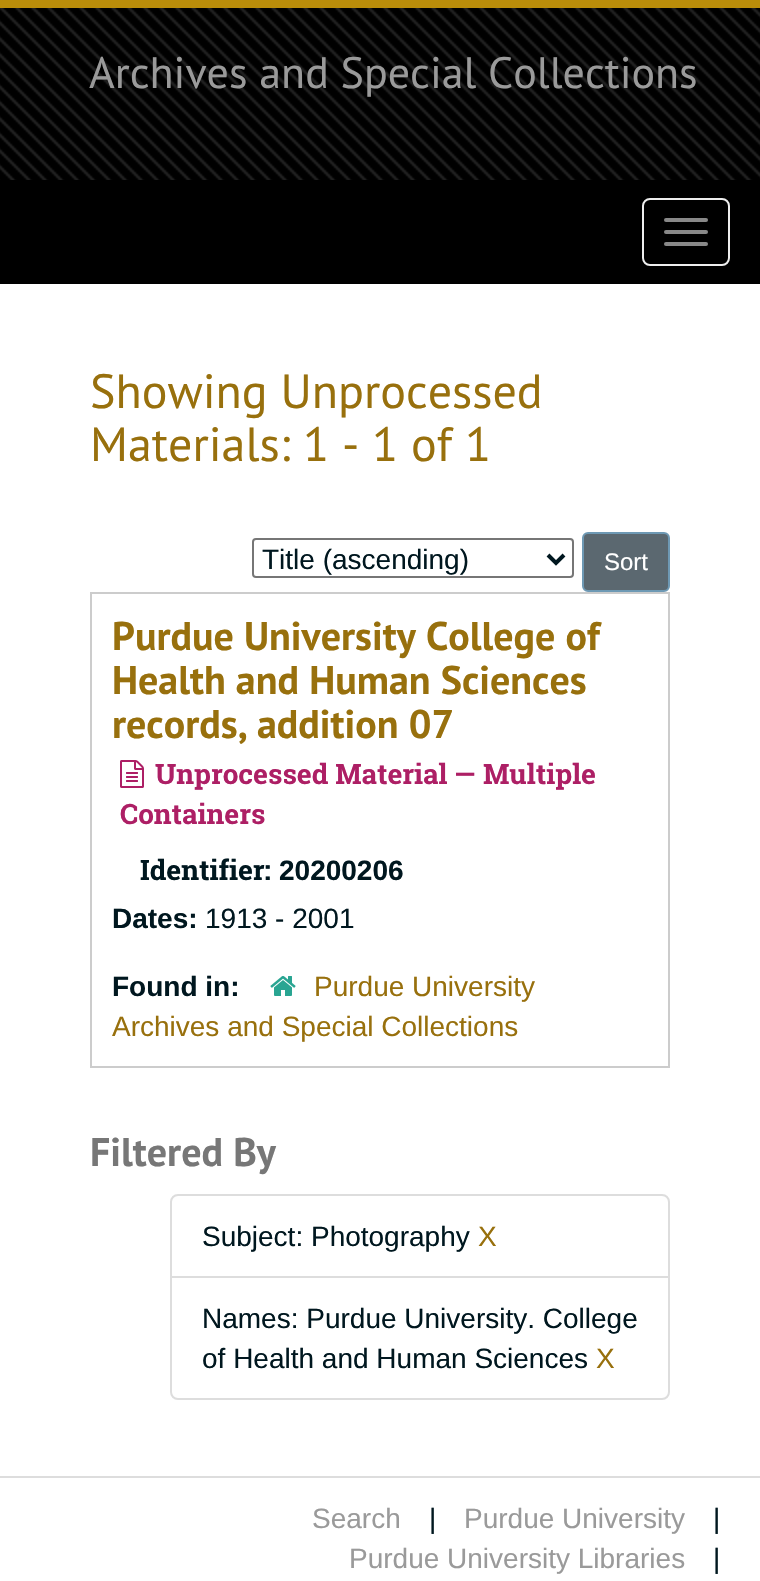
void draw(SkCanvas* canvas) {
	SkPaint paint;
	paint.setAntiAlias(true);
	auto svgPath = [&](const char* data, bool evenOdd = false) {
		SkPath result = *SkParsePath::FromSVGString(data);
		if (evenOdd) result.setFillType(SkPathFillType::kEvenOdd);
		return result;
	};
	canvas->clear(0xffffffff);
	canvas->drawImageRect(SkImages::DeferredFromEncodedData(SkData::MakeFromFileName("img1.png")), SkRect::MakeXYWH(0, 8, 760, 172), SkSamplingOptions());
	paint.setColor(0xffbb8d0a);
	canvas->drawRect(SkRect::MakeXYWH(0, 0, 760, 8), paint);
	SkFont f1(fontMgr->matchFamilyStyle("PT Sans", SkFontStyle::Normal()), 44);
	f1.setSubpixel(true);
	paint.setColor(0xff9a9a9a);
	canvas->drawString("Archives and Special Collections", 89, 88, f1, paint);
	paint.setColor(0xff000000);
	canvas->drawRect(SkRect::MakeXYWH(0, 180, 760, 104), paint);
	paint.setStroke(true);
	paint.setStrokeWidth(2);
	paint.setColor(0xffeeeeee);
	canvas->drawRoundRect(SkRect::MakeXYWH(643, 199, 86, 66), 7, 7, paint);
	paint.setStroke(false);
	paint.setColor(0xff888888);
	canvas->drawRoundRect(SkRect::MakeXYWH(664, 218, 44, 4), 2, 2, paint);
	canvas->drawRoundRect(SkRect::MakeXYWH(664, 230, 44, 4), 2, 2, paint);
	canvas->drawRoundRect(SkRect::MakeXYWH(664, 242, 44, 4), 2, 2, paint);
	SkFont f2(fontMgr->matchFamilyStyle("PT Sans", SkFontStyle::Normal()), 48);
	f2.setSubpixel(true);
	paint.setColor(0xff98700d);
	canvas->drawString("Showing Unprocessed", 90, 408, f2, paint);
	canvas->drawString("Materials: 1 - 1 of 1", 90, 461, f2, paint);
	paint.setStroke(true);
	paint.setColor(0xff767676);
	canvas->drawRoundRect(SkRect::MakeXYWH(253, 539, 320, 38), 3, 3, paint);
	paint.setStrokeWidth(4);
	paint.setColor(0xff00171f);
	canvas->drawPath(svgPath("M548 555L556 563L564 555"), paint);
	SkFont f3(fontMgr->matchFamilyStyle("Liberation Sans", SkFontStyle::Normal()), 28);
	f3.setSubpixel(true);
	paint.setStroke(false);
	canvas->drawString("Title (ascending)", 262, 569, f3, paint);
	paint.setColor(0xff5b6870);
	canvas->drawRoundRect(SkRect::MakeXYWH(583, 533, 86, 58), 5, 5, paint);
	paint.setStroke(true);
	paint.setStrokeWidth(2);
	paint.setColor(0xff6e99b4);
	canvas->drawRoundRect(SkRect::MakeXYWH(583, 533, 86, 58), 5, 5, paint);
	SkFont f4(fontMgr->matchFamilyStyle("Liberation Sans", SkFontStyle::Normal()), 24);
	f4.setSubpixel(true);
	paint.setStroke(false);
	paint.setColor(0xffffffff);
	canvas->drawString("Sort", 604, 570, f4, paint);
	paint.setStroke(true);
	paint.setColor(0xffcccccc);
	canvas->drawRect(SkRect::MakeXYWH(91, 593, 578, 474), paint);
	SkFont f5(fontMgr->matchFamilyStyle("PT Sans", SkFontStyle::Bold()), 40);
	f5.setSubpixel(true);
	paint.setStroke(false);
	paint.setColor(0xff98700d);
	canvas->drawString("Purdue University College of", 112, 650, f5, paint);
	canvas->drawString("Health and Human Sciences", 112, 694, f5, paint);
	canvas->drawString("records, addition 07", 112, 738, f5, paint);
	canvas->drawImageRect(SkImages::DeferredFromEncodedData(SkData::MakeFromFileName("img2.png")), SkRect::MakeXYWH(120, 760, 24, 28), SkSamplingOptions());
	SkFont f6(fontMgr->matchFamilyStyle("Roboto Slab", SkFontStyle::Bold()), 28);
	f6.setSubpixel(true);
	paint.setColor(0xffad1f65);
	canvas->drawString("Unprocessed Material — Multiple", 155, 784, f6, paint);
	canvas->drawString("Containers", 120, 824, f6, paint);
	paint.setColor(0xff00171f);
	canvas->drawString("Identifier:", 140, 880, f6, paint);
	SkFont f7(fontMgr->matchFamilyStyle("Liberation Sans", SkFontStyle::Bold()), 28);
	f7.setSubpixel(true);
	canvas->drawString("20200206", 279, 880, f7, paint);
	canvas->drawString("Dates:", 112, 928, f7, paint);
	canvas->drawString("1913 - 2001", 205, 928, f3, paint);
	canvas->drawImageRect(SkImages::DeferredFromEncodedData(SkData::MakeFromFileName("img3.png")), SkRect::MakeXYWH(270, 976, 26, 20), SkSamplingOptions());
	paint.setColor(0xff98700d);
	canvas->drawString("Purdue University", 314, 996, f3, paint);
	canvas->drawString("Archives and Special Collections", 112, 1036, f3, paint);
	paint.setColor(0xff00171f);
	canvas->drawString("Found in:", 112, 996, f7, paint);
	paint.setColor(0xff777777);
	canvas->drawString("Filtered By", 90, 1166, f5, paint);
	paint.setStroke(true);
	paint.setColor(0xffdddddd);
	canvas->drawPath(svgPath("M178 1195H662C666 1195 669 1198 669 1202V1277H171V1202C171 1198 174 1195 178 1195Z"), paint);
	paint.setStroke(false);
	paint.setColor(0xff00171f);
	canvas->drawString("Subject: Photography", 202, 1246, f3, paint);
	paint.setColor(0xff98700d);
	canvas->drawString("X", 478, 1246, f3, paint);
	paint.setColor(0xffffffff);
	canvas->drawPath(svgPath("M171 1277H669V1392C669 1396 666 1399 662 1399H178C174 1399 171 1396 171 1392Z"), paint);
	paint.setStroke(true);
	paint.setColor(0xffdddddd);
	canvas->drawPath(svgPath("M171 1277H669V1392C669 1396 666 1399 662 1399H178C174 1399 171 1396 171 1392Z"), paint);
	paint.setStroke(false);
	paint.setColor(0xff00171f);
	canvas->drawString("Names: Purdue University. College", 202, 1328, f3, paint);
	canvas->drawString("of Health and Human Sciences", 202, 1368, f3, paint);
	paint.setColor(0xff98700d);
	canvas->drawString("X", 596, 1368, f3, paint);
	paint.setColor(0xffdddddd);
	canvas->drawRect(SkRect::MakeXYWH(0, 1476, 760, 2), paint);
	paint.setColor(0xff9a9a9a);
	canvas->drawString("Search", 312, 1528, f3, paint);
	paint.setColor(0xff00171f);
	canvas->drawString("|", 429, 1528, f3, paint);
	paint.setColor(0xff9a9a9a);
	canvas->drawString("Purdue University", 464, 1528, f3, paint);
	paint.setColor(0xff00171f);
	canvas->drawString("|", 713, 1528, f3, paint);
	paint.setColor(0xff9a9a9a);
	canvas->drawString("Purdue University Libraries", 349, 1568, f3, paint);
	paint.setColor(0xff00171f);
	canvas->drawString("|", 713, 1568, f3, paint);
}
